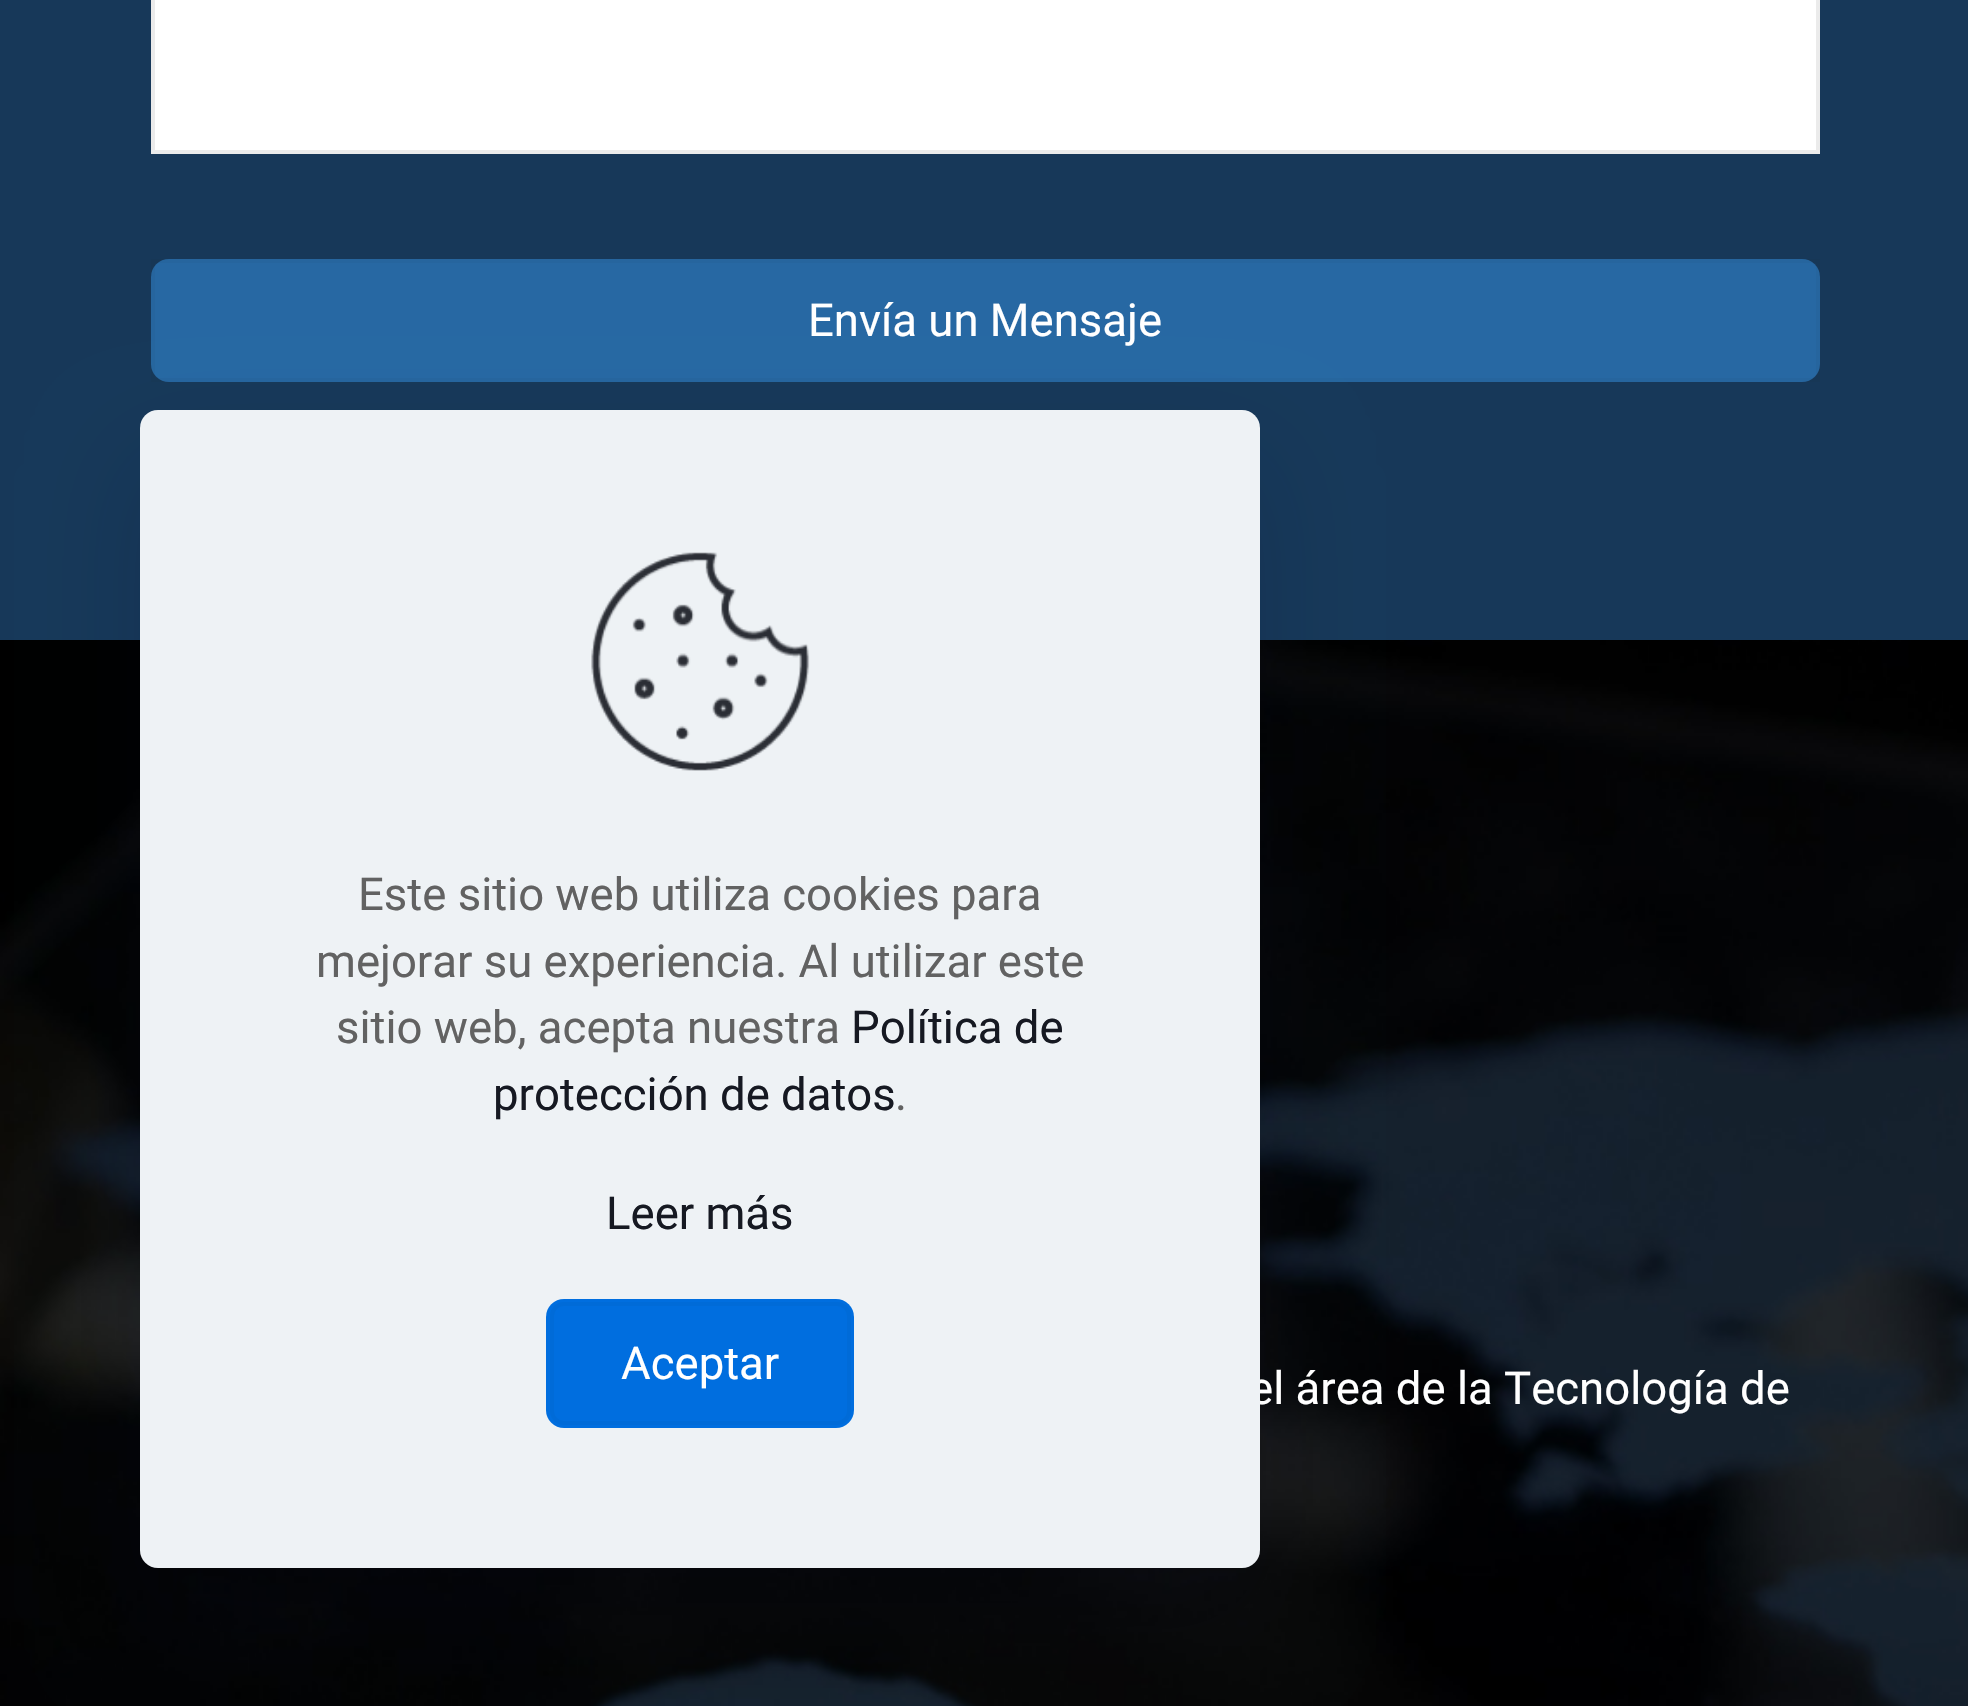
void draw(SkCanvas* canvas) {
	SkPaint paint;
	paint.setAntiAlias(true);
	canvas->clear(0xff173859);
	paint.setColor(0xff2768a3);
	canvas->drawRoundRect(SkRect::MakeXYWH(151, 259, 1669, 123), 18, 18, paint);
	paint.setStroke(true);
	paint.setStrokeWidth(4);
	paint.setColor(0x08000000);
	canvas->drawRect(SkRect::MakeXYWH(153, 261, 1665, 119), paint);
	canvas->drawImageRect(SkImages::DeferredFromEncodedData(SkData::MakeFromFileName("img2.png")), SkRect::MakeXYWH(0, 640, 1968, 1066), SkSamplingOptions());
	paint.setStroke(false);
	paint.setColor(0x21010727);
	paint.setMaskFilter(SkMaskFilter::MakeBlur(kNormal_SkBlurStyle, 52.5));
	canvas->drawRoundRect(SkRect::MakeXYWH(140, 462, 1120, 1159), 18, 18, paint);
	paint.setMaskFilter(nullptr);
	SkFont f1(fontMgr->matchFamilyStyle("Roboto", SkFontStyle::Normal()), 45.5);
	f1.setSubpixel(true);
	paint.setColor(0xffffffff);
	canvas->drawString("el área de la Tecnología de", 1249, 1404, f1, paint);
	paint.setColor(0xffeef2f5);
	canvas->drawRoundRect(SkRect::MakeXYWH(140, 410, 1120, 1158), 18, 18, paint);
	canvas->drawImageRect(SkImages::DeferredFromEncodedData(SkData::MakeFromFileName("img1.png")), SkRect::MakeXYWH(591, 552, 219, 219), SkSamplingOptions());
	paint.setColor(0xff626262);
	canvas->drawString("Este sitio web utiliza cookies para", 358, 910, f1, paint);
	canvas->drawString("mejorar su experiencia. Al utilizar este", 316, 977, f1, paint);
	canvas->drawString("sitio web, acepta nuestra", 336, 1043, f1, paint);
	paint.setColor(0xff161922);
	canvas->drawString("Política de", 851, 1043, f1, paint);
	canvas->drawString("protección de datos", 493, 1110, f1, paint);
	paint.setColor(0xff626262);
	canvas->drawString(".", 895, 1110, f1, paint);
	paint.setColor(0xff161922);
	canvas->drawString("Leer más", 606, 1229, f1, paint);
	paint.setColor(0xff006edf);
	canvas->drawRoundRect(SkRect::MakeXYWH(546, 1299, 308, 129), 18, 18, paint);
	paint.setStroke(true);
	paint.setColor(0xff006bd8);
	canvas->drawRoundRect(SkRect::MakeXYWH(552, 1304, 297, 119), 12, 12, paint);
	paint.setStroke(false);
	paint.setColor(0xffffffff);
	canvas->drawString("Aceptar", 621, 1379, f1, paint);
	canvas->drawRect(SkRect::MakeXYWH(153, -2, 1665, 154), paint);
	paint.setStroke(true);
	paint.setColor(0xffebebeb);
	canvas->drawRect(SkRect::MakeXYWH(153, -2, 1665, 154), paint);
	paint.setStroke(false);
	paint.setColor(0xffffffff);
	canvas->drawString("Envía un Mensaje", 808, 336, f1, paint);
}
